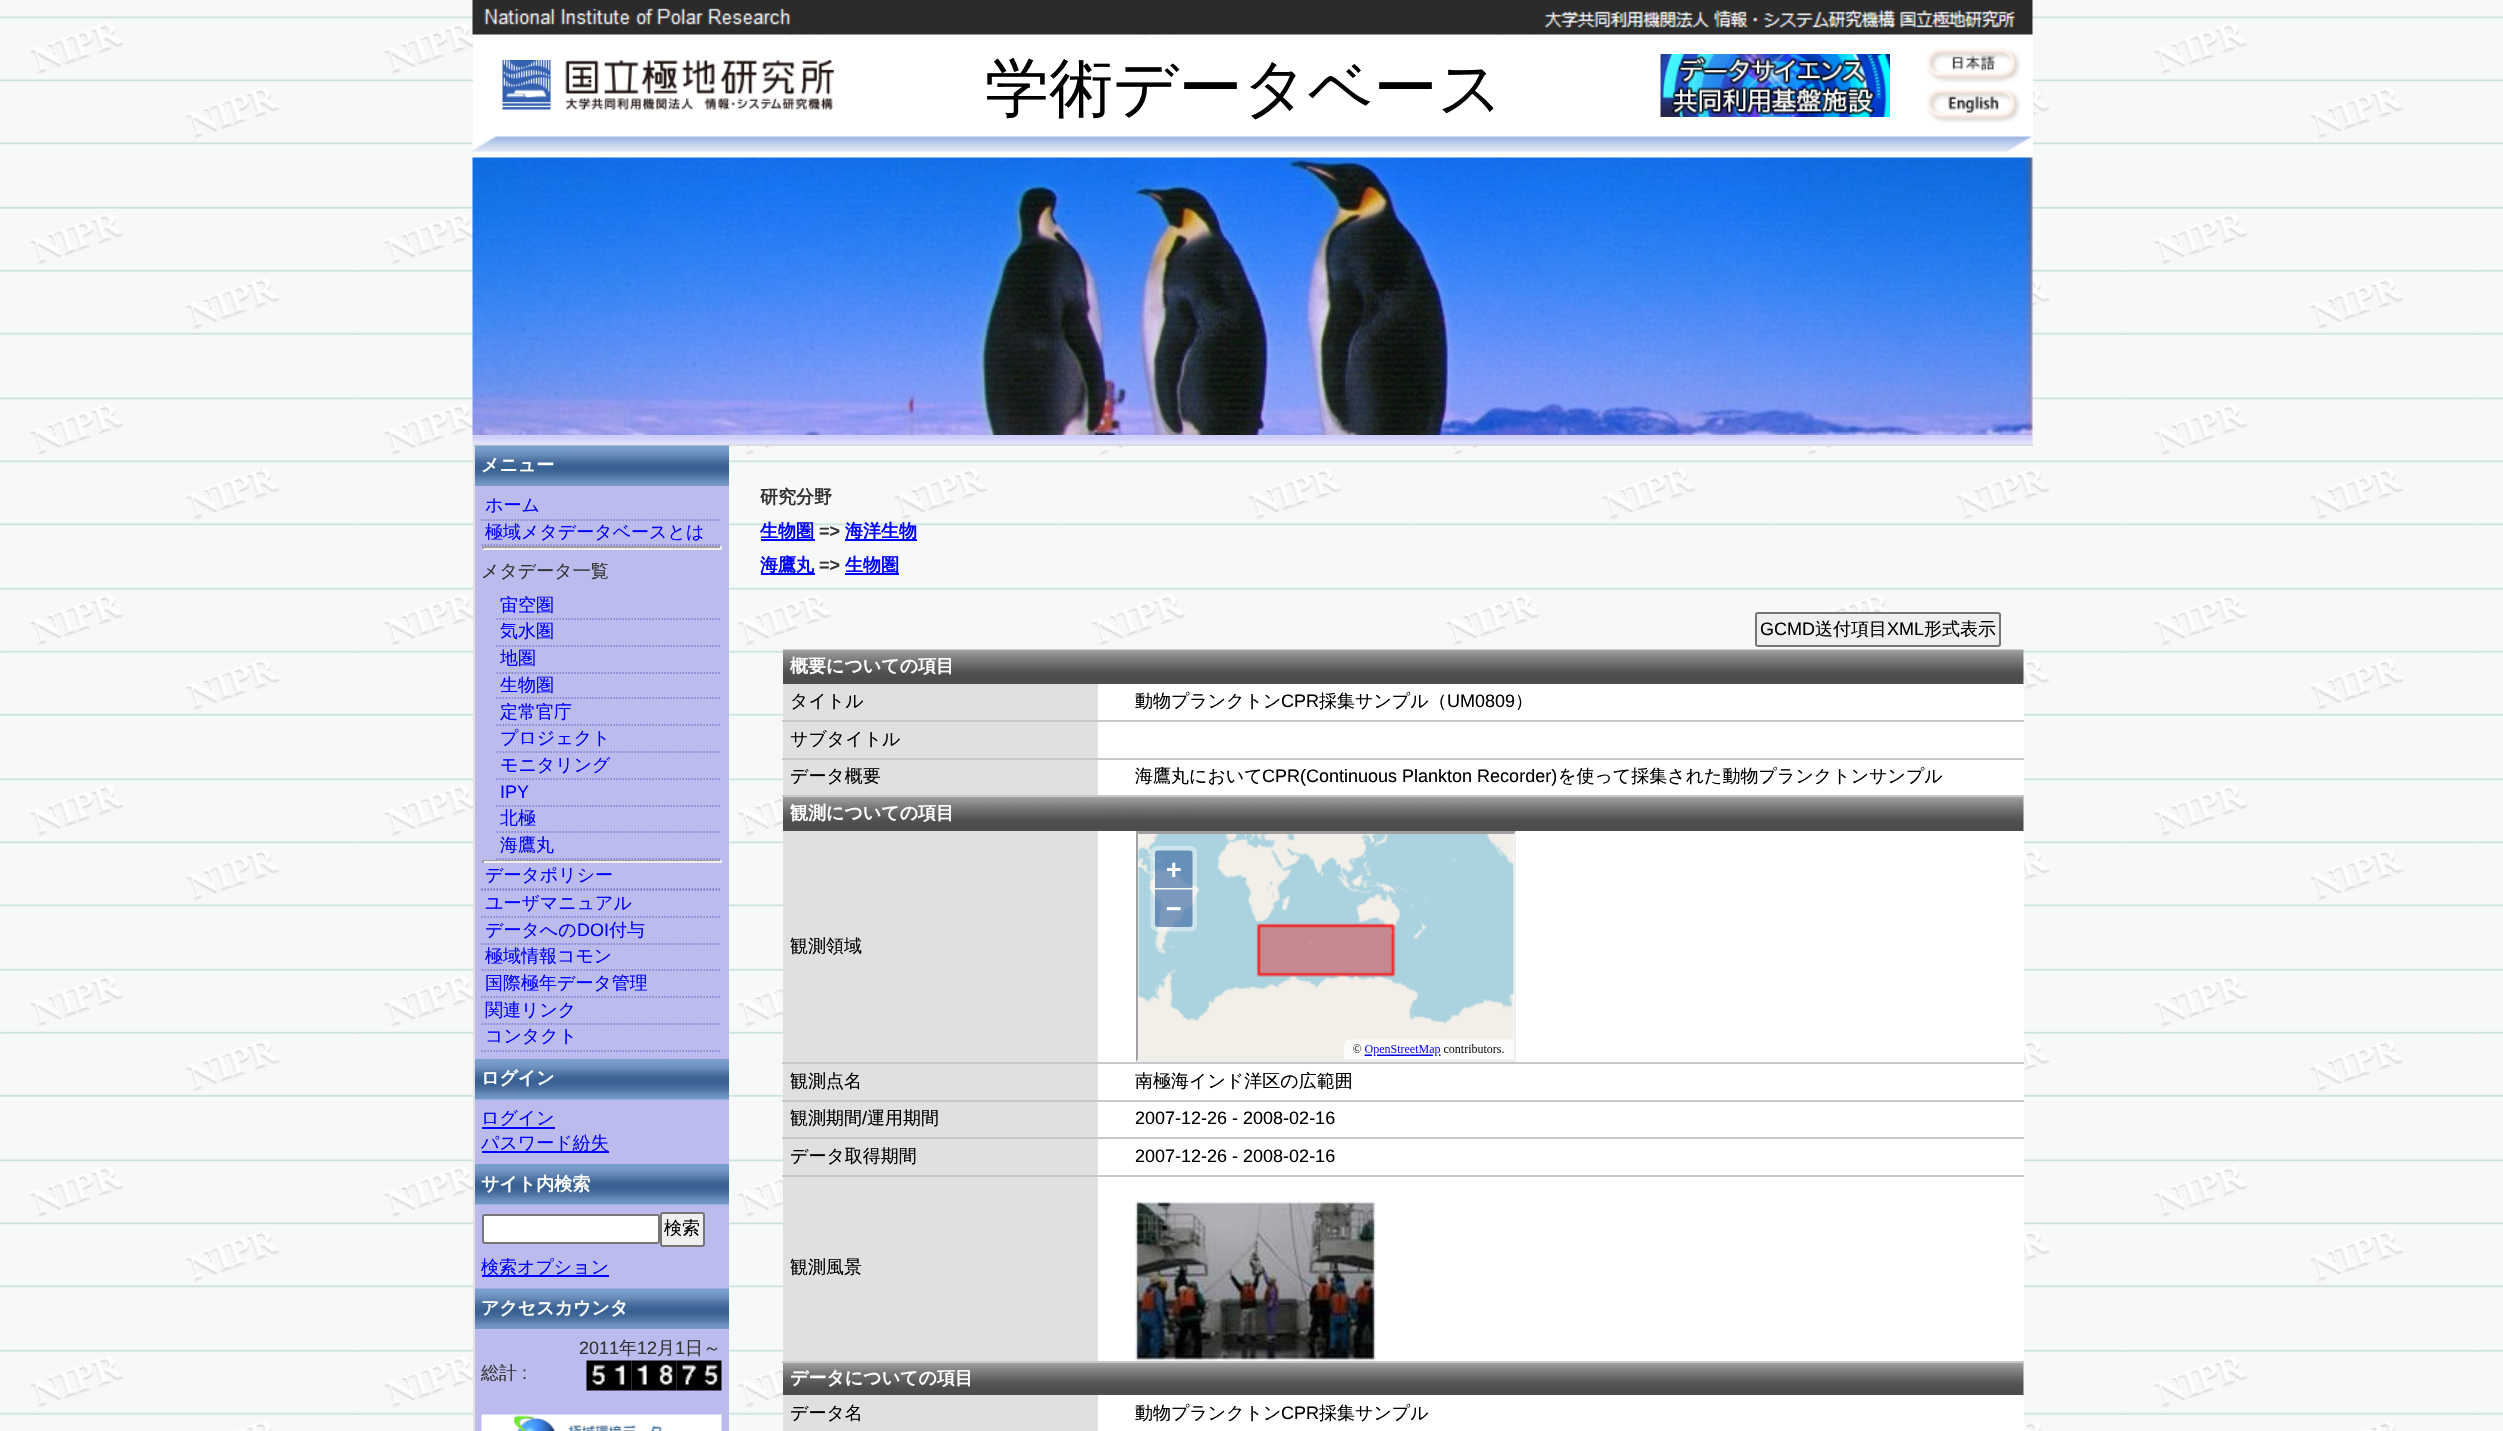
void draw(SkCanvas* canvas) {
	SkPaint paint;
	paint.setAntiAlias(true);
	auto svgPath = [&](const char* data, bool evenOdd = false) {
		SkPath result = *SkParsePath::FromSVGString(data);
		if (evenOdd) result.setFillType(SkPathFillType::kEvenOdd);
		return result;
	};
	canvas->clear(0xffffffff);
	canvas->drawImageRect(SkImages::DeferredFromEncodedData(SkData::MakeFromFileName("img1.png")), SkRect::MakeXYWH(0, 0, 2503, 1431), SkSamplingOptions());
	canvas->drawImageRect(SkImages::DeferredFromEncodedData(SkData::MakeFromFileName("img2.png")), SkRect::MakeXYWH(472, 0, 1561, 35), SkSamplingOptions());
	paint.setColor(0xffffffff);
	canvas->drawRect(SkRect::MakeXYWH(473, 35, 1560, 123), paint);
	canvas->drawImageRect(SkImages::DeferredFromEncodedData(SkData::MakeFromFileName("img3.png")), SkRect::MakeXYWH(502, 60, 332, 50), SkSamplingOptions());
	SkFont f1(fontMgr->matchFamilyStyle("WenQuanYi Zen Hei", SkFontStyle(500, SkFontStyle::kNormal_Width, SkFontStyle::kUpright_Slant)), 64);
	f1.setSubpixel(true);
	paint.setColor(0xff000000);
	canvas->drawString("学術データベース", 985, 110, f1, paint);
	canvas->drawImageRect(SkImages::DeferredFromEncodedData(SkData::MakeFromFileName("img4.png")), SkRect::MakeXYWH(1660, 54, 230, 63), SkSamplingOptions());
	canvas->drawImageRect(SkImages::DeferredFromEncodedData(SkData::MakeFromFileName("img5.png")), SkRect::MakeXYWH(1926, 48, 95, 35), SkSamplingOptions());
	canvas->drawImageRect(SkImages::DeferredFromEncodedData(SkData::MakeFromFileName("img6.png")), SkRect::MakeXYWH(1926, 89, 95, 34), SkSamplingOptions());
	canvas->drawImageRect(SkImages::DeferredFromEncodedData(SkData::MakeFromFileName("img7.png")), SkRect::MakeXYWH(472, 136, 1561, 16), SkSamplingOptions());
	canvas->drawImageRect(SkImages::DeferredFromEncodedData(SkData::MakeFromFileName("img8.png")), SkRect::MakeXYWH(472, 157, 1561, 278), SkSamplingOptions());
	canvas->drawImageRect(SkImages::DeferredFromEncodedData(SkData::MakeFromFileName("img9.png")), SkRect::MakeXYWH(472, 435, 1561, 11), SkSamplingOptions());
	paint.setColor(0xffdddddd);
	canvas->drawRect(SkRect::MakeXYWH(473, 444, 1560, 2), paint);
	paint.setColor(0xffbbbbee);
	canvas->drawRect(SkRect::MakeXYWH(475, 486, 254, 945), paint);
	canvas->drawImageRect(SkImages::DeferredFromEncodedData(SkData::MakeFromFileName("img10.png")), SkRect::MakeXYWH(474, 445, 255, 41), SkSamplingOptions());
	paint.setColor(0xffe3e1e1);
	canvas->drawRect(SkRect::MakeXYWH(473, 446, 2, 985), paint);
	SkFont f2(fontMgr->matchFamilyStyle("WenQuanYi Zen Hei", SkFontStyle::Bold()), 18);
	f2.setSubpixel(true);
	paint.setColor(0xffffffff);
	canvas->drawString("メニュー", 481, 471, f2, paint);
	paint.setStroke(true);
	paint.setStrokeWidth(1.5);
	paint.setColor(0xff7a7acc);
	paint.setPathEffect(SkDashPathEffect::Make({{1.5f, 1.5f}}, 0));
	canvas->drawPath(svgPath("M481.5 520H721.5"), paint);
	paint.setPathEffect(nullptr);
	SkFont f3(fontMgr->matchFamilyStyle("WenQuanYi Zen Hei", SkFontStyle(500, SkFontStyle::kNormal_Width, SkFontStyle::kUpright_Slant)), 18);
	f3.setSubpixel(true);
	paint.setStroke(false);
	paint.setColor(0xff0000ff);
	canvas->drawString("ホーム", 485, 511, f3, paint);
	paint.setStroke(true);
	paint.setColor(0xff7a7acc);
	paint.setPathEffect(SkDashPathEffect::Make({{1.5f, 1.5f}}, 0));
	canvas->drawPath(svgPath("M481.5 545H721.5"), paint);
	paint.setPathEffect(nullptr);
	paint.setStroke(false);
	paint.setColor(0xff0000ff);
	canvas->drawString("極域メタデータベースとは", 485, 538, f3, paint);
	paint.setColor(0xff9f9f9f);
	canvas->drawRect(SkRect::MakeXYWH(482, 546, 240, 2), paint);
	paint.setColor(0xffeeeeee);
	canvas->drawRect(SkRect::MakeXYWH(720, 546, 2, 3), paint);
	canvas->drawRect(SkRect::MakeXYWH(482, 548, 240, 2), paint);
	paint.setColor(0xff9f9f9f);
	canvas->drawRect(SkRect::MakeXYWH(482, 546, 2, 3), paint);
	paint.setColor(0xff333333);
	canvas->drawString("メタデータ一覧", 481, 577, f3, paint);
	paint.setStroke(true);
	paint.setColor(0xff7a7acc);
	paint.setPathEffect(SkDashPathEffect::Make({{1.5f, 1.5f}}, 0));
	canvas->drawPath(svgPath("M496.5 619H721.5"), paint);
	paint.setPathEffect(nullptr);
	paint.setStroke(false);
	paint.setColor(0xff0000ff);
	canvas->drawString("宙空圏", 500, 611, f3, paint);
	paint.setStroke(true);
	paint.setColor(0xff7a7acc);
	paint.setPathEffect(SkDashPathEffect::Make({{1.5f, 1.5f}}, 0));
	canvas->drawPath(svgPath("M496.5 646H721.5"), paint);
	paint.setPathEffect(nullptr);
	paint.setStroke(false);
	paint.setColor(0xff0000ff);
	canvas->drawString("気水圏", 500, 637, f3, paint);
	paint.setStroke(true);
	paint.setColor(0xff7a7acc);
	paint.setPathEffect(SkDashPathEffect::Make({{1.5f, 1.5f}}, 0));
	canvas->drawPath(svgPath("M496.5 673H721.5"), paint);
	paint.setPathEffect(nullptr);
	paint.setStroke(false);
	paint.setColor(0xff0000ff);
	canvas->drawString("地圏", 500, 664, f3, paint);
	paint.setStroke(true);
	paint.setColor(0xff7a7acc);
	paint.setPathEffect(SkDashPathEffect::Make({{1.5f, 1.5f}}, 0));
	canvas->drawPath(svgPath("M496.5 698H721.5"), paint);
	paint.setPathEffect(nullptr);
	paint.setStroke(false);
	paint.setColor(0xff0000ff);
	canvas->drawString("生物圏", 500, 691, f3, paint);
	paint.setStroke(true);
	paint.setColor(0xff7a7acc);
	paint.setPathEffect(SkDashPathEffect::Make({{1.5f, 1.5f}}, 0));
	canvas->drawPath(svgPath("M496.5 725H721.5"), paint);
	paint.setPathEffect(nullptr);
	paint.setStroke(false);
	paint.setColor(0xff0000ff);
	canvas->drawString("定常官庁", 500, 718, f3, paint);
	paint.setStroke(true);
	paint.setColor(0xff7a7acc);
	paint.setPathEffect(SkDashPathEffect::Make({{1.5f, 1.5f}}, 0));
	canvas->drawPath(svgPath("M496.5 752H721.5"), paint);
	paint.setPathEffect(nullptr);
	paint.setStroke(false);
	paint.setColor(0xff0000ff);
	canvas->drawString("プロジェクト", 500, 744, f3, paint);
	paint.setStroke(true);
	paint.setColor(0xff7a7acc);
	paint.setPathEffect(SkDashPathEffect::Make({{1.5f, 1.5f}}, 0));
	canvas->drawPath(svgPath("M496.5 779H721.5"), paint);
	paint.setPathEffect(nullptr);
	paint.setStroke(false);
	paint.setColor(0xff0000ff);
	canvas->drawString("モニタリング", 500, 771, f3, paint);
	paint.setStroke(true);
	paint.setColor(0xff7a7acc);
	paint.setPathEffect(SkDashPathEffect::Make({{1.5f, 1.5f}}, 0));
	canvas->drawPath(svgPath("M496.5 806H721.5"), paint);
	paint.setPathEffect(nullptr);
	SkFont f4(fontMgr->matchFamilyStyle("Liberation Sans", SkFontStyle::Normal()), 18);
	f4.setSubpixel(true);
	paint.setStroke(false);
	paint.setColor(0xff0000ff);
	canvas->drawString("IPY", 500, 798, f4, paint);
	paint.setStroke(true);
	paint.setColor(0xff7a7acc);
	paint.setPathEffect(SkDashPathEffect::Make({{1.5f, 1.5f}}, 0));
	canvas->drawPath(svgPath("M496.5 832H721.5"), paint);
	paint.setPathEffect(nullptr);
	paint.setStroke(false);
	paint.setColor(0xff0000ff);
	canvas->drawString("北極", 500, 824, f3, paint);
	paint.setStroke(true);
	paint.setColor(0xff7a7acc);
	paint.setPathEffect(SkDashPathEffect::Make({{1.5f, 1.5f}}, 0));
	canvas->drawPath(svgPath("M496.5 859H721.5"), paint);
	paint.setPathEffect(nullptr);
	paint.setStroke(false);
	paint.setColor(0xff0000ff);
	canvas->drawString("海鷹丸", 500, 851, f3, paint);
	paint.setColor(0xff9f9f9f);
	canvas->drawRect(SkRect::MakeXYWH(482, 860, 240, 1), paint);
	paint.setColor(0xffeeeeee);
	canvas->drawRect(SkRect::MakeXYWH(720, 860, 2, 3), paint);
	canvas->drawRect(SkRect::MakeXYWH(482, 861, 240, 2), paint);
	paint.setColor(0xff9f9f9f);
	canvas->drawRect(SkRect::MakeXYWH(482, 860, 2, 3), paint);
	paint.setStroke(true);
	paint.setColor(0xff7a7acc);
	paint.setPathEffect(SkDashPathEffect::Make({{1.5f, 1.5f}}, 0));
	canvas->drawPath(svgPath("M481.5 889H721.5"), paint);
	paint.setPathEffect(nullptr);
	paint.setStroke(false);
	paint.setColor(0xff0000ff);
	canvas->drawString("データポリシー", 485, 881, f3, paint);
	paint.setStroke(true);
	paint.setColor(0xff7a7acc);
	paint.setPathEffect(SkDashPathEffect::Make({{1.5f, 1.5f}}, 0));
	canvas->drawPath(svgPath("M481.5 890H721.5"), paint);
	paint.setPathEffect(nullptr);
	paint.setPathEffect(SkDashPathEffect::Make({{1.5f, 1.5f}}, 0));
	canvas->drawPath(svgPath("M481.5 917H721.5"), paint);
	paint.setPathEffect(nullptr);
	paint.setStroke(false);
	paint.setColor(0xff0000ff);
	canvas->drawString("ユーザマニュアル", 485, 909, f3, paint);
	paint.setStroke(true);
	paint.setColor(0xff7a7acc);
	paint.setPathEffect(SkDashPathEffect::Make({{1.5f, 1.5f}}, 0));
	canvas->drawPath(svgPath("M481.5 944H721.5"), paint);
	paint.setPathEffect(nullptr);
	paint.setStroke(false);
	paint.setColor(0xff0000ff);
	canvas->drawString("データへの", 485, 936, f3, paint);
	canvas->drawString("DOI", 577, 936, f4, paint);
	canvas->drawString("付与", 609, 936, f3, paint);
	paint.setStroke(true);
	paint.setColor(0xff7a7acc);
	paint.setPathEffect(SkDashPathEffect::Make({{1.5f, 1.5f}}, 0));
	canvas->drawPath(svgPath("M481.5 970H721.5"), paint);
	paint.setPathEffect(nullptr);
	paint.setStroke(false);
	paint.setColor(0xff0000ff);
	canvas->drawString("極域情報コモン", 485, 962, f3, paint);
	paint.setStroke(true);
	paint.setColor(0xff7a7acc);
	paint.setPathEffect(SkDashPathEffect::Make({{1.5f, 1.5f}}, 0));
	canvas->drawPath(svgPath("M481.5 997H721.5"), paint);
	paint.setPathEffect(nullptr);
	paint.setStroke(false);
	paint.setColor(0xff0000ff);
	canvas->drawString("国際極年データ管理", 485, 989, f3, paint);
	paint.setStroke(true);
	paint.setColor(0xff7a7acc);
	paint.setPathEffect(SkDashPathEffect::Make({{1.5f, 1.5f}}, 0));
	canvas->drawPath(svgPath("M481.5 1024H721.5"), paint);
	paint.setPathEffect(nullptr);
	paint.setStroke(false);
	paint.setColor(0xff0000ff);
	canvas->drawString("関連リンク", 485, 1016, f3, paint);
	paint.setStroke(true);
	paint.setColor(0xff7a7acc);
	paint.setPathEffect(SkDashPathEffect::Make({{1.5f, 1.5f}}, 0));
	canvas->drawPath(svgPath("M481.5 1051H721.5"), paint);
	paint.setPathEffect(nullptr);
	paint.setStroke(false);
	paint.setColor(0xff0000ff);
	canvas->drawString("コンタクト", 485, 1042, f3, paint);
	canvas->drawImageRect(SkImages::DeferredFromEncodedData(SkData::MakeFromFileName("img11.png")), SkRect::MakeXYWH(475, 1059, 254, 41), SkSamplingOptions());
	paint.setColor(0xffffffff);
	canvas->drawString("ログイン", 481, 1084, f2, paint);
	paint.setColor(0xff0000ff);
	canvas->drawString("ログイン", 481, 1124, f3, paint);
	canvas->drawRect(SkRect::MakeXYWH(482, 1127, 73, 2), paint);
	canvas->drawRect(SkRect::MakeXYWH(482, 1151, 127, 2), paint);
	canvas->drawString("パスワード紛失", 481, 1149, f3, paint);
	canvas->drawImageRect(SkImages::DeferredFromEncodedData(SkData::MakeFromFileName("img12.png")), SkRect::MakeXYWH(475, 1164, 254, 41), SkSamplingOptions());
	paint.setColor(0xffffffff);
	canvas->drawString("サイト内検索", 481, 1190, f2, paint);
	canvas->drawRoundRect(SkRect::MakeXYWH(483, 1215, 176, 28), 2, 2, paint);
	paint.setStroke(true);
	paint.setStrokeWidth(2);
	paint.setColor(0xff767676);
	canvas->drawRoundRect(SkRect::MakeXYWH(483, 1215, 176, 28), 2, 2, paint);
	paint.setStroke(false);
	paint.setColor(0xffefefef);
	canvas->drawRoundRect(SkRect::MakeXYWH(661, 1213, 43, 33), 2, 2, paint);
	paint.setStroke(true);
	paint.setColor(0xff767676);
	canvas->drawRoundRect(SkRect::MakeXYWH(661, 1213, 43, 33), 2, 2, paint);
	paint.setStroke(false);
	paint.setColor(0xff000000);
	canvas->drawString("検索", 664, 1234, f3, paint);
	paint.setColor(0xff0000ff);
	canvas->drawRect(SkRect::MakeXYWH(482, 1275, 127, 2), paint);
	canvas->drawString("検索オプション", 481, 1273, f3, paint);
	canvas->drawImageRect(SkImages::DeferredFromEncodedData(SkData::MakeFromFileName("img13.png")), SkRect::MakeXYWH(475, 1288, 254, 41), SkSamplingOptions());
	paint.setColor(0xffffffff);
	canvas->drawString("アクセスカウンタ", 481, 1314, f2, paint);
	paint.setColor(0xff333333);
	canvas->drawString("2011", 579, 1354, f4, paint);
	canvas->drawString("年", 619, 1354, f3, paint);
	canvas->drawString("12", 637, 1354, f4, paint);
	canvas->drawString("月", 657, 1354, f3, paint);
	canvas->drawString("1", 675, 1354, f4, paint);
	canvas->drawString("日～", 685, 1354, f3, paint);
	canvas->drawString("総計", 481, 1379, f3, paint);
	canvas->drawString(":", 522, 1379, f4, paint);
	canvas->drawImageRect(SkImages::DeferredFromEncodedData(SkData::MakeFromFileName("img14.png")), SkRect::MakeXYWH(586, 1360, 23, 31), SkSamplingOptions());
	canvas->drawImageRect(SkImages::DeferredFromEncodedData(SkData::MakeFromFileName("img15.png")), SkRect::MakeXYWH(609, 1360, 23, 31), SkSamplingOptions());
	canvas->drawImageRect(SkImages::DeferredFromEncodedData(SkData::MakeFromFileName("img16.png")), SkRect::MakeXYWH(631, 1360, 23, 31), SkSamplingOptions());
	canvas->drawImageRect(SkImages::DeferredFromEncodedData(SkData::MakeFromFileName("img17.png")), SkRect::MakeXYWH(654, 1360, 23, 31), SkSamplingOptions());
	canvas->drawImageRect(SkImages::DeferredFromEncodedData(SkData::MakeFromFileName("img18.png")), SkRect::MakeXYWH(676, 1360, 23, 31), SkSamplingOptions());
	canvas->drawImageRect(SkImages::DeferredFromEncodedData(SkData::MakeFromFileName("img19.png")), SkRect::MakeXYWH(699, 1360, 23, 31), SkSamplingOptions());
	canvas->drawImageRect(SkImages::DeferredFromEncodedData(SkData::MakeFromFileName("img20.png")), SkRect::MakeXYWH(481, 1414, 241, 17), SkSamplingOptions());
	canvas->drawString("研究分野", 760, 503, f2, paint);
	paint.setColor(0xff0000ff);
	canvas->drawRect(SkRect::MakeXYWH(761, 539, 54, 2), paint);
	canvas->drawString("生物圏", 760, 537, f2, paint);
	SkFont f5(fontMgr->matchFamilyStyle("Liberation Sans", SkFontStyle::Bold()), 18);
	f5.setSubpixel(true);
	paint.setColor(0xff333333);
	canvas->drawString("=>", 819, 537, f5, paint);
	paint.setColor(0xff0000ff);
	canvas->drawRect(SkRect::MakeXYWH(845, 539, 72, 2), paint);
	canvas->drawString("海洋生物", 845, 537, f2, paint);
	canvas->drawRect(SkRect::MakeXYWH(761, 573, 54, 2), paint);
	canvas->drawString("海鷹丸", 760, 571, f2, paint);
	paint.setColor(0xff333333);
	canvas->drawString("=>", 819, 571, f5, paint);
	paint.setColor(0xff0000ff);
	canvas->drawRect(SkRect::MakeXYWH(845, 573, 54, 2), paint);
	canvas->drawString("生物圏", 845, 571, f2, paint);
	paint.setColor(0xffefefef);
	canvas->drawRoundRect(SkRect::MakeXYWH(1756, 613, 244, 33), 2, 2, paint);
	paint.setStroke(true);
	paint.setColor(0xff767676);
	canvas->drawRoundRect(SkRect::MakeXYWH(1756, 613, 244, 33), 2, 2, paint);
	paint.setStroke(false);
	paint.setColor(0xff000000);
	canvas->drawString("GCMD", 1760, 635, f4, paint);
	canvas->drawString("送付項目", 1815, 635, f3, paint);
	canvas->drawString("XML", 1887, 635, f4, paint);
	canvas->drawString("形式表示", 1924, 635, f3, paint);
	canvas->drawImageRect(SkImages::DeferredFromEncodedData(SkData::MakeFromFileName("img21.png")), SkRect::MakeXYWH(783, 649, 315, 35), SkSamplingOptions());
	paint.setColor(0xffffffff);
	canvas->drawString("概要についての項目", 790, 672, f2, paint);
	canvas->drawImageRect(SkImages::DeferredFromEncodedData(SkData::MakeFromFileName("img22.png")), SkRect::MakeXYWH(1098, 649, 926, 35), SkSamplingOptions());
	paint.setColor(0xffe0e0e0);
	canvas->drawRect(SkRect::MakeXYWH(783, 684, 315, 36), paint);
	paint.setColor(0xff000000);
	canvas->drawString("タイトル", 790, 707, f3, paint);
	paint.setColor(0xffffffff);
	canvas->drawRect(SkRect::MakeXYWH(1098, 684, 926, 36), paint);
	paint.setColor(0xffc8c8c8);
	canvas->drawRect(SkRect::MakeXYWH(782, 720, 1242, 2), paint);
	paint.setColor(0xff000000);
	canvas->drawString("動物プランクトン", 1135, 707, f3, paint);
	canvas->drawString("CPR", 1281, 707, f4, paint);
	canvas->drawString("採集サンプル（", 1319, 707, f3, paint);
	canvas->drawString("UM0809", 1447, 707, f4, paint);
	canvas->drawString("）", 1515, 707, f3, paint);
	paint.setColor(0xffffffff);
	canvas->drawRect(SkRect::MakeXYWH(1098, 722, 926, 36), paint);
	paint.setColor(0xffc8c8c8);
	canvas->drawRect(SkRect::MakeXYWH(782, 758, 1242, 2), paint);
	paint.setColor(0xffe0e0e0);
	canvas->drawRect(SkRect::MakeXYWH(783, 722, 315, 36), paint);
	paint.setColor(0xff000000);
	canvas->drawString("サブタイトル", 790, 745, f3, paint);
	paint.setColor(0xffe0e0e0);
	canvas->drawRect(SkRect::MakeXYWH(783, 760, 315, 35), paint);
	paint.setColor(0xff000000);
	canvas->drawString("データ概要", 790, 782, f3, paint);
	paint.setColor(0xffffffff);
	canvas->drawRect(SkRect::MakeXYWH(1098, 760, 926, 35), paint);
	paint.setColor(0xffc8c8c8);
	canvas->drawRect(SkRect::MakeXYWH(782, 795, 1242, 2), paint);
	paint.setColor(0xff000000);
	canvas->drawString("海鷹丸において", 1135, 782, f3, paint);
	canvas->drawString("CPR(Continuous Plankton Recorder)", 1262, 782, f4, paint);
	canvas->drawString("を使って採集された動物プランクトンサンプル", 1558, 782, f3, paint);
	canvas->drawImageRect(SkImages::DeferredFromEncodedData(SkData::MakeFromFileName("img23.png")), SkRect::MakeXYWH(783, 797, 315, 34), SkSamplingOptions());
	paint.setColor(0xffffffff);
	canvas->drawString("観測についての項目", 790, 819, f2, paint);
	canvas->drawImageRect(SkImages::DeferredFromEncodedData(SkData::MakeFromFileName("img24.png")), SkRect::MakeXYWH(1098, 797, 926, 34), SkSamplingOptions());
	canvas->drawRect(SkRect::MakeXYWH(1098, 831, 926, 231), paint);
	paint.setColor(0xffc8c8c8);
	canvas->drawRect(SkRect::MakeXYWH(782, 1062, 1242, 2), paint);
	paint.setColor(0xff9f9f9f);
	canvas->drawPath(svgPath("M1136 831H1516L1514 834H1138Z"), paint);
	paint.setColor(0xffeeeeee);
	canvas->drawPath(svgPath("M1516 831V1062L1514 1059V834Z"), paint);
	canvas->drawPath(svgPath("M1516 1062H1136L1138 1059H1514Z"), paint);
	paint.setColor(0xff9f9f9f);
	canvas->drawPath(svgPath("M1136 1062V831L1138 834V1059Z"), paint);
	canvas->drawImageRect(SkImages::DeferredFromEncodedData(SkData::MakeFromFileName("img25.png")), SkRect::MakeXYWH(1138, 834, 376, 225), SkSamplingOptions());
	paint.setColor(0xffe0e0e0);
	canvas->drawRect(SkRect::MakeXYWH(783, 831, 315, 231), paint);
	paint.setColor(0xff000000);
	canvas->drawString("観測領域", 790, 952, f3, paint);
	paint.setColor(0xffe0e0e0);
	canvas->drawRect(SkRect::MakeXYWH(783, 1064, 315, 36), paint);
	paint.setColor(0xff000000);
	canvas->drawString("観測点名", 790, 1087, f3, paint);
	paint.setColor(0xffffffff);
	canvas->drawRect(SkRect::MakeXYWH(1098, 1064, 926, 36), paint);
	paint.setColor(0xffc8c8c8);
	canvas->drawRect(SkRect::MakeXYWH(782, 1100, 1242, 2), paint);
	paint.setColor(0xff000000);
	canvas->drawString("南極海インド洋区の広範囲", 1135, 1087, f3, paint);
	paint.setColor(0xffe0e0e0);
	canvas->drawRect(SkRect::MakeXYWH(783, 1102, 315, 35), paint);
	paint.setColor(0xff000000);
	canvas->drawString("観測期間", 790, 1124, f3, paint);
	canvas->drawString("/", 862, 1124, f4, paint);
	canvas->drawString("運用期間", 867, 1124, f3, paint);
	paint.setColor(0xffffffff);
	canvas->drawRect(SkRect::MakeXYWH(1098, 1102, 926, 35), paint);
	paint.setColor(0xffc8c8c8);
	canvas->drawRect(SkRect::MakeXYWH(782, 1137, 1242, 2), paint);
	paint.setColor(0xff000000);
	canvas->drawString("2007-12-26 - 2008-02-16", 1135, 1124, f4, paint);
	paint.setColor(0xffe0e0e0);
	canvas->drawRect(SkRect::MakeXYWH(783, 1139, 315, 36), paint);
	paint.setColor(0xff000000);
	canvas->drawString("データ取得期間", 790, 1162, f3, paint);
	paint.setColor(0xffffffff);
	canvas->drawRect(SkRect::MakeXYWH(1098, 1139, 926, 36), paint);
	paint.setColor(0xffc8c8c8);
	canvas->drawRect(SkRect::MakeXYWH(782, 1175, 1242, 2), paint);
	paint.setColor(0xff000000);
	canvas->drawString("2007-12-26 - 2008-02-16", 1135, 1162, f4, paint);
	paint.setColor(0xffffffff);
	canvas->drawRect(SkRect::MakeXYWH(1098, 1177, 926, 184), paint);
	paint.setColor(0xffc8c8c8);
	canvas->drawRect(SkRect::MakeXYWH(782, 1361, 1242, 2), paint);
	canvas->drawImageRect(SkImages::DeferredFromEncodedData(SkData::MakeFromFileName("img26.png")), SkRect::MakeXYWH(1135, 1201, 241, 160), SkSamplingOptions());
	paint.setColor(0xffe0e0e0);
	canvas->drawRect(SkRect::MakeXYWH(783, 1177, 315, 184), paint);
	paint.setColor(0xff000000);
	canvas->drawString("観測風景", 790, 1273, f3, paint);
	canvas->drawImageRect(SkImages::DeferredFromEncodedData(SkData::MakeFromFileName("img27.png")), SkRect::MakeXYWH(783, 1363, 315, 32), SkSamplingOptions());
	paint.setColor(0xffffffff);
	canvas->drawString("データについての項目", 790, 1384, f2, paint);
	canvas->drawImageRect(SkImages::DeferredFromEncodedData(SkData::MakeFromFileName("img28.png")), SkRect::MakeXYWH(1098, 1363, 926, 32), SkSamplingOptions());
	paint.setColor(0xffe0e0e0);
	canvas->drawRect(SkRect::MakeXYWH(783, 1395, 315, 36), paint);
	paint.setColor(0xff000000);
	canvas->drawString("データ名", 790, 1419, f3, paint);
	paint.setColor(0xffffffff);
	canvas->drawRect(SkRect::MakeXYWH(1098, 1395, 926, 36), paint);
	paint.setColor(0xff000000);
	canvas->drawString("動物プランクトン", 1135, 1419, f3, paint);
	canvas->drawString("CPR", 1281, 1419, f4, paint);
	canvas->drawString("採集サンプル", 1319, 1419, f3, paint);
}
